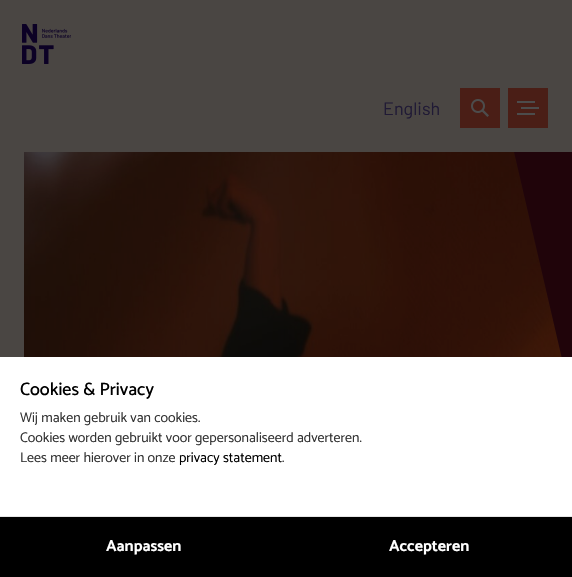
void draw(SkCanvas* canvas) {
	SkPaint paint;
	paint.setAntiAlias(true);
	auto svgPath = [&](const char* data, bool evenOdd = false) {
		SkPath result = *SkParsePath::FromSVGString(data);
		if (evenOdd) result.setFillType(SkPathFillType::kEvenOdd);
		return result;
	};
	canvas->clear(0xff4a4643);
	canvas->drawImageRect(SkImages::DeferredFromEncodedData(SkData::MakeFromFileName("img1.png")), SkRect::MakeXYWH(22, 24, 49, 40), SkSamplingOptions());
	SkFont f1(fontMgr->matchFamilyStyle("Barlow", SkFontStyle::Normal()), 18);
	f1.setSubpixel(true);
	paint.setColor(0xff201a35);
	canvas->drawString("English", 383, 115, f1, paint);
	paint.setColor(0xff4a1e16);
	canvas->drawRect(SkRect::MakeXYWH(460, 88, 40, 40), paint);
	canvas->drawImageRect(SkImages::DeferredFromEncodedData(SkData::MakeFromFileName("img2.png")), SkRect::MakeXYWH(471, 99, 18, 18), SkSamplingOptions());
	canvas->drawRect(SkRect::MakeXYWH(508, 88, 40, 40), paint);
	canvas->drawImageRect(SkImages::DeferredFromEncodedData(SkData::MakeFromFileName("img3.png")), SkRect::MakeXYWH(517, 101, 22, 14), SkSamplingOptions());
	canvas->drawImageRect(SkImages::DeferredFromEncodedData(SkData::MakeFromFileName("img4.png")), SkRect::MakeXYWH(24, 152, 538, 205), SkSamplingOptions());
	paint.setColor(0xff20040a);
	canvas->drawPath(svgPath("M572 152H514L562 359L481 372L485 378H572Z"), paint);
	paint.setColor(0xffffffff);
	canvas->drawRect(SkRect::MakeXYWH(0, 357, 572, 159), paint);
	paint.setColor(0xffe6e6e6);
	canvas->drawRect(SkRect::MakeXYWH(0, 516, 572, 1), paint);
	SkFont f2(fontMgr->matchFamilyStyle("Catamaran", SkFontStyle(500, SkFontStyle::kNormal_Width, SkFontStyle::kUpright_Slant)), 18);
	f2.setSubpixel(true);
	paint.setColor(0xff000000);
	canvas->drawString("Cookies & Privacy", 20, 395, f2, paint);
	SkFont f3(fontMgr->matchFamilyStyle("Catamaran", SkFontStyle::Normal()), 14);
	f3.setSubpixel(true);
	paint.setColor(0xff333333);
	canvas->drawString("Wij maken gebruik van cookies.", 20, 422, f3, paint);
	canvas->drawString("Cookies worden gebruikt voor gepersonaliseerd adverteren.", 20, 442, f3, paint);
	canvas->drawString("Lees meer hierover in onze", 20, 462, f3, paint);
	paint.setColor(0xff000000);
	canvas->drawString("privacy statement", 179, 462, f3, paint);
	paint.setColor(0xff333333);
	canvas->drawString(".", 282, 462, f3, paint);
	paint.setColor(0xff000000);
	canvas->drawRect(SkRect::MakeXYWH(0, 517, 572, 60), paint);
	SkFont f4(fontMgr->matchFamilyStyle("Catamaran", SkFontStyle::Bold()), 16);
	f4.setSubpixel(true);
	paint.setColor(0xffffffff);
	canvas->drawString("Aanpassen", 106, 551, f4, paint);
	canvas->drawString("Accepteren", 389, 551, f4, paint);
}
